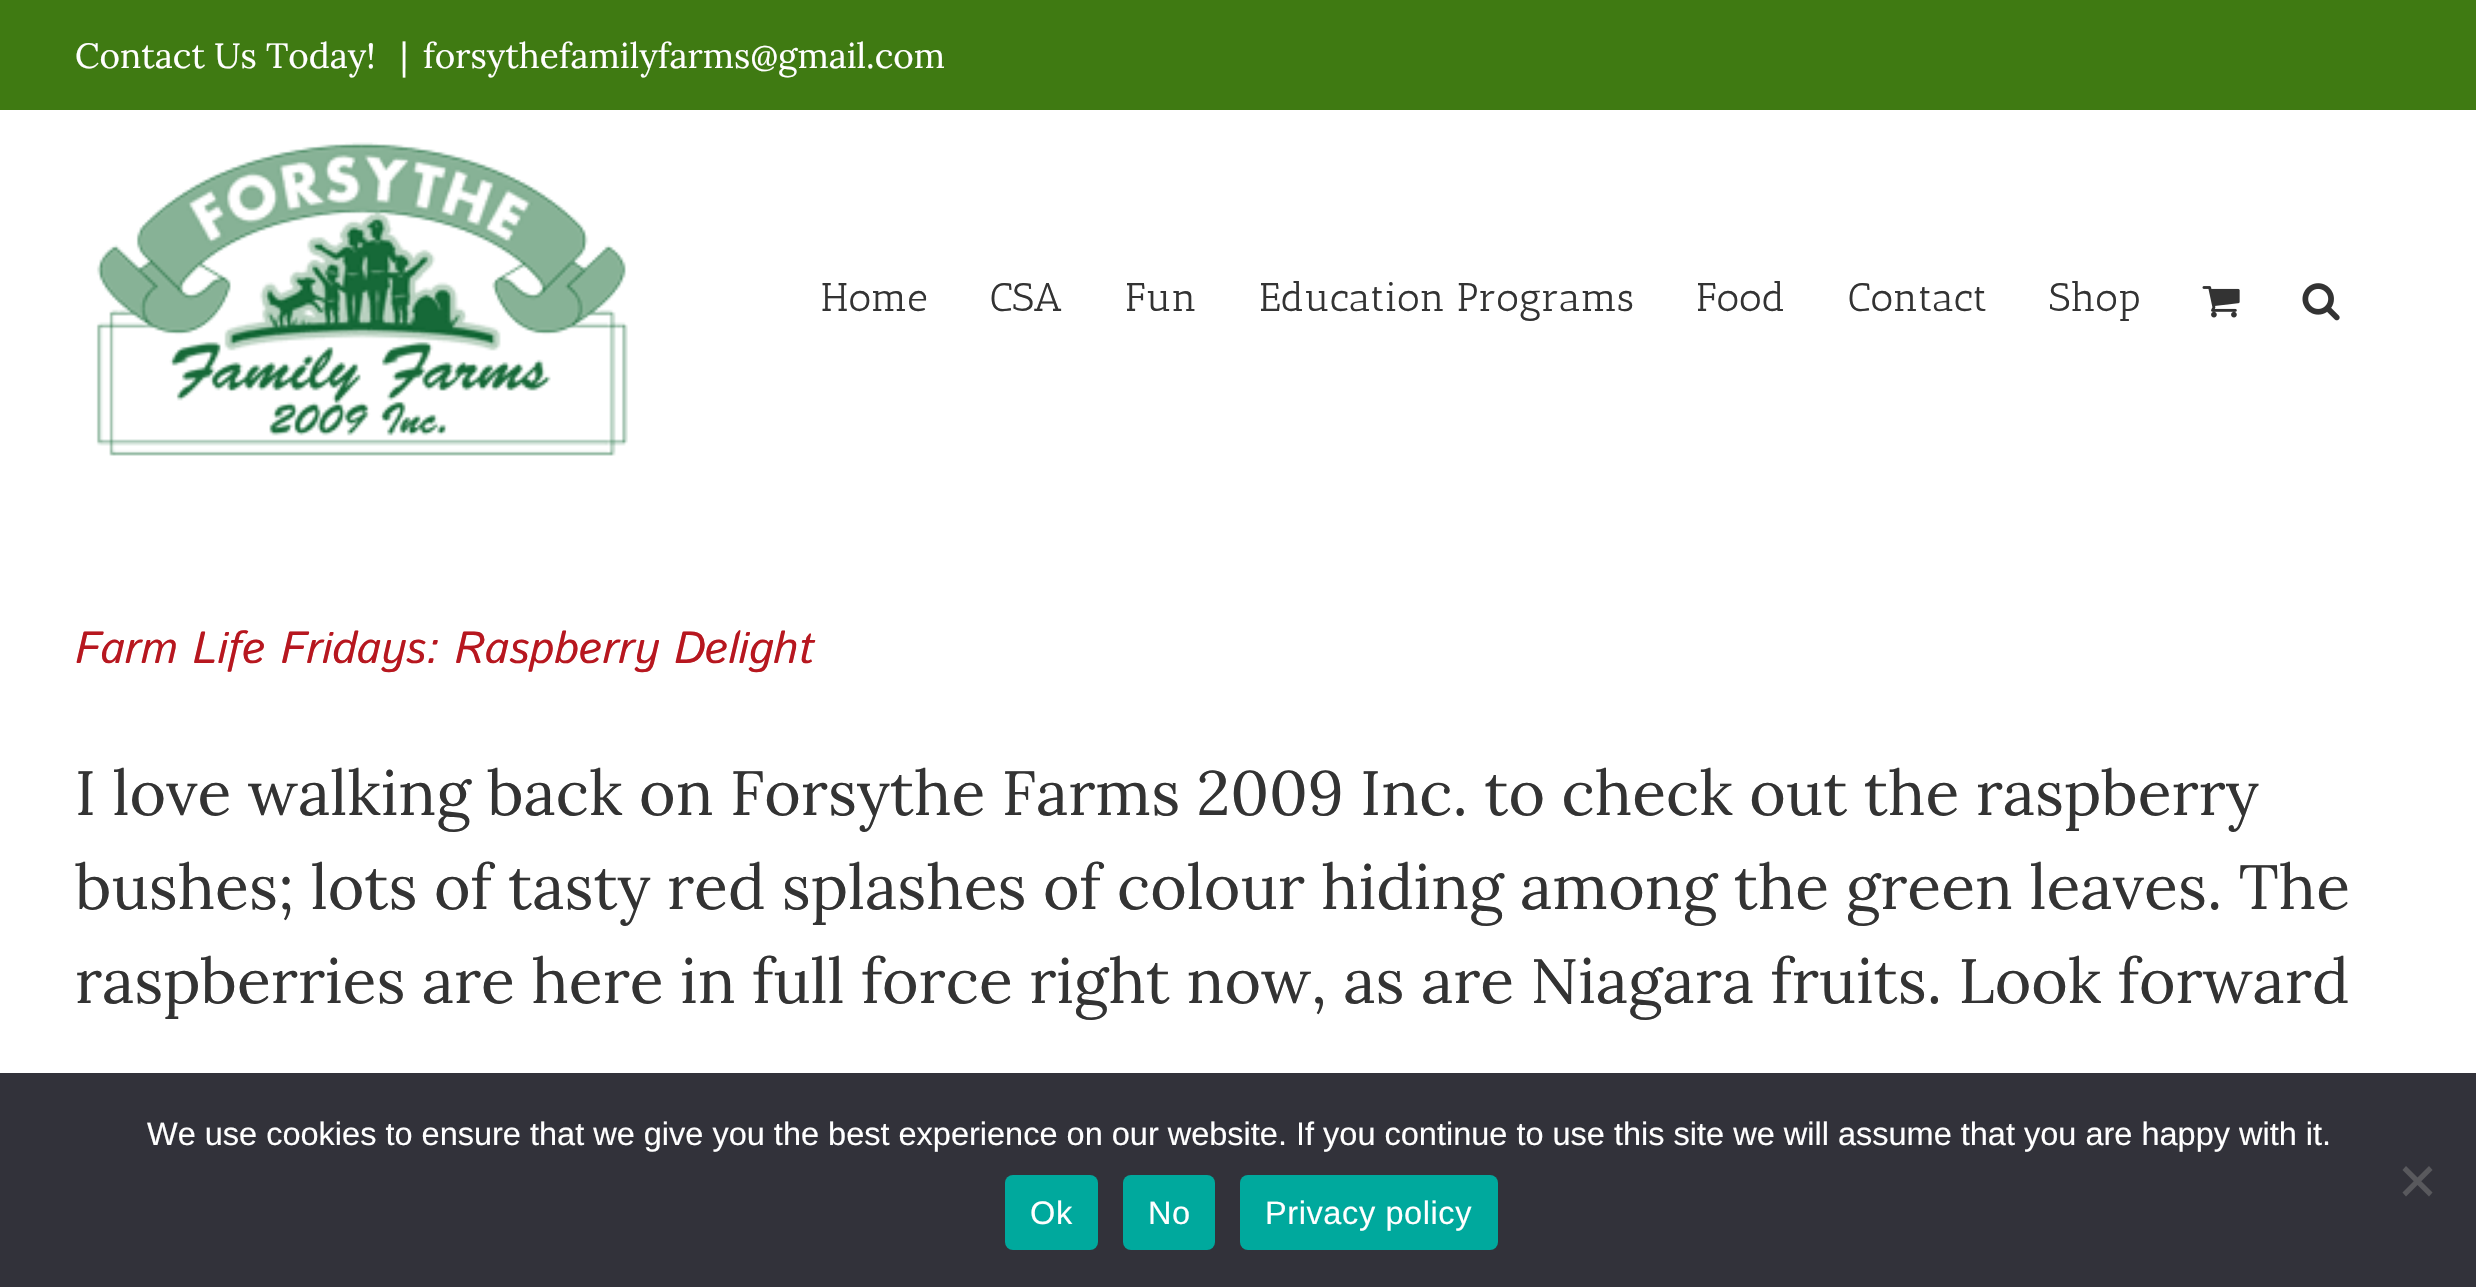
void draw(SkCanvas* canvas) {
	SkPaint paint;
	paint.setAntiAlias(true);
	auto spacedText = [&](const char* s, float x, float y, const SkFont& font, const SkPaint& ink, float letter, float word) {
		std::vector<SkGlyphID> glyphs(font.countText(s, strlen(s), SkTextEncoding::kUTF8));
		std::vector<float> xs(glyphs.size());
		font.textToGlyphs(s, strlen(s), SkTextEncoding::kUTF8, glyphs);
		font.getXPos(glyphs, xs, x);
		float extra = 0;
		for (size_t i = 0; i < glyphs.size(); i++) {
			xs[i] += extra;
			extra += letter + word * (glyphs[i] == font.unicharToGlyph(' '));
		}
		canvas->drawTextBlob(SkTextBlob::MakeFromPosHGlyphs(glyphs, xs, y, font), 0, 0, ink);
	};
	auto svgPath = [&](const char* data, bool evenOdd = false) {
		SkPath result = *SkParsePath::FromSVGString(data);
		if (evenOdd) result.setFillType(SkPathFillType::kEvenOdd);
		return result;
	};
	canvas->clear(0xffffffff);
	paint.setColor(0xff3f7a12);
	canvas->drawRect(SkRect::MakeXYWH(0, 0, 2476, 110), paint);
	SkFont f1(fontMgr->matchFamilyStyle("Lora", SkFontStyle::Normal()), 35);
	f1.setSubpixel(true);
	paint.setColor(0xffffffff);
	canvas->drawString("Contact Us Today!", 75, 68, f1, paint);
	canvas->drawString("|", 400, 68, f1, paint);
	canvas->drawString("forsythefamilyfarms@gmail.com", 423, 68, f1, paint);
	canvas->drawImageRect(SkImages::DeferredFromEncodedData(SkData::MakeFromFileName("img1.png")), SkRect::MakeXYWH(96, 142, 532, 314), SkSamplingOptions());
	SkFont f2(fontMgr->matchFamilyStyle("Antic Slab", SkFontStyle::Normal()), 40);
	f2.setSubpixel(true);
	paint.setColor(0xff333333);
	canvas->drawString("Home", 821, 311, f2, paint);
	canvas->drawString("CSA", 990, 311, f2, paint);
	canvas->drawString("Fun", 1125, 311, f2, paint);
	canvas->drawString("Education Programs", 1259, 311, f2, paint);
	canvas->drawString("Food", 1696, 311, f2, paint);
	canvas->drawString("Contact", 1848, 311, f2, paint);
	canvas->drawString("Shop", 2049, 311, f2, paint);
	canvas->drawImageRect(SkImages::DeferredFromEncodedData(SkData::MakeFromFileName("img2.png")), SkRect::MakeXYWH(2202, 286, 38, 32), SkSamplingOptions());
	canvas->drawImageRect(SkImages::DeferredFromEncodedData(SkData::MakeFromFileName("img3.png")), SkRect::MakeXYWH(2302, 283, 38, 38), SkSamplingOptions());
	SkFont f3(fontMgr->matchFamilyStyle("Istok Web", SkFontStyle::BoldItalic()), 45);
	f3.setSubpixel(true);
	paint.setColor(0xffb7171f);
	canvas->drawString("Farm Life Fridays: Raspberry Delight", 75, 663, f3, paint);
	SkFont f4(fontMgr->matchFamilyStyle("Lora", SkFontStyle::Normal()), 62.5);
	f4.setSubpixel(true);
	paint.setColor(0xff333333);
	canvas->drawString("I love walking back on Forsythe Farms 2009 Inc. to check out the raspberry", 75, 815, f4, paint);
	canvas->drawString("bushes; lots of tasty red splashes of colour hiding among the green leaves. The", 75, 909, f4, paint);
	canvas->drawString("raspberries are here in full force right now, as are Niagara fruits. Look forward", 75, 1003, f4, paint);
	paint.setColor(0xff32323a);
	canvas->drawRect(SkRect::MakeXYWH(0, 1073, 2476, 214), paint);
	SkFont f5(fontMgr->matchFamilyStyle("Liberation Sans", SkFontStyle::Normal()), 32.5);
	f5.setSubpixel(true);
	paint.setColor(0xffffffff);
	canvas->drawString("We use cookies to ensure that we give you the best experience on our website. If you continue to use this site we will assume that you are happy with it.", 147, 1145, f5, paint);
	paint.setColor(0xff59595d);
	canvas->drawPath(svgPath("M2429 1166L2432.5 1170L2406 1196.5L2402.5 1192.5Z"), paint);
	canvas->drawPath(svgPath("M2402.5 1170L2406 1166L2432.5 1192.5L2429 1196.5Z"), paint);
	paint.setColor(0xff00a99d);
	canvas->drawRoundRect(SkRect::MakeXYWH(1005, 1175, 93, 75), 8, 8, paint);
	paint.setColor(0xffffffff);
	spacedText("Ok", 1030, 1224, f5, paint, 0.6, 0);
	paint.setColor(0xff00a99d);
	canvas->drawRoundRect(SkRect::MakeXYWH(1123, 1175, 92, 75), 8, 8, paint);
	paint.setColor(0xffffffff);
	spacedText("No", 1148, 1224, f5, paint, 0.6, 0);
	paint.setColor(0xff00a99d);
	canvas->drawRoundRect(SkRect::MakeXYWH(1240, 1175, 258, 75), 8, 8, paint);
	paint.setColor(0xffffffff);
	spacedText("Privacy policy", 1265, 1224, f5, paint, 0.6, 0);
}
